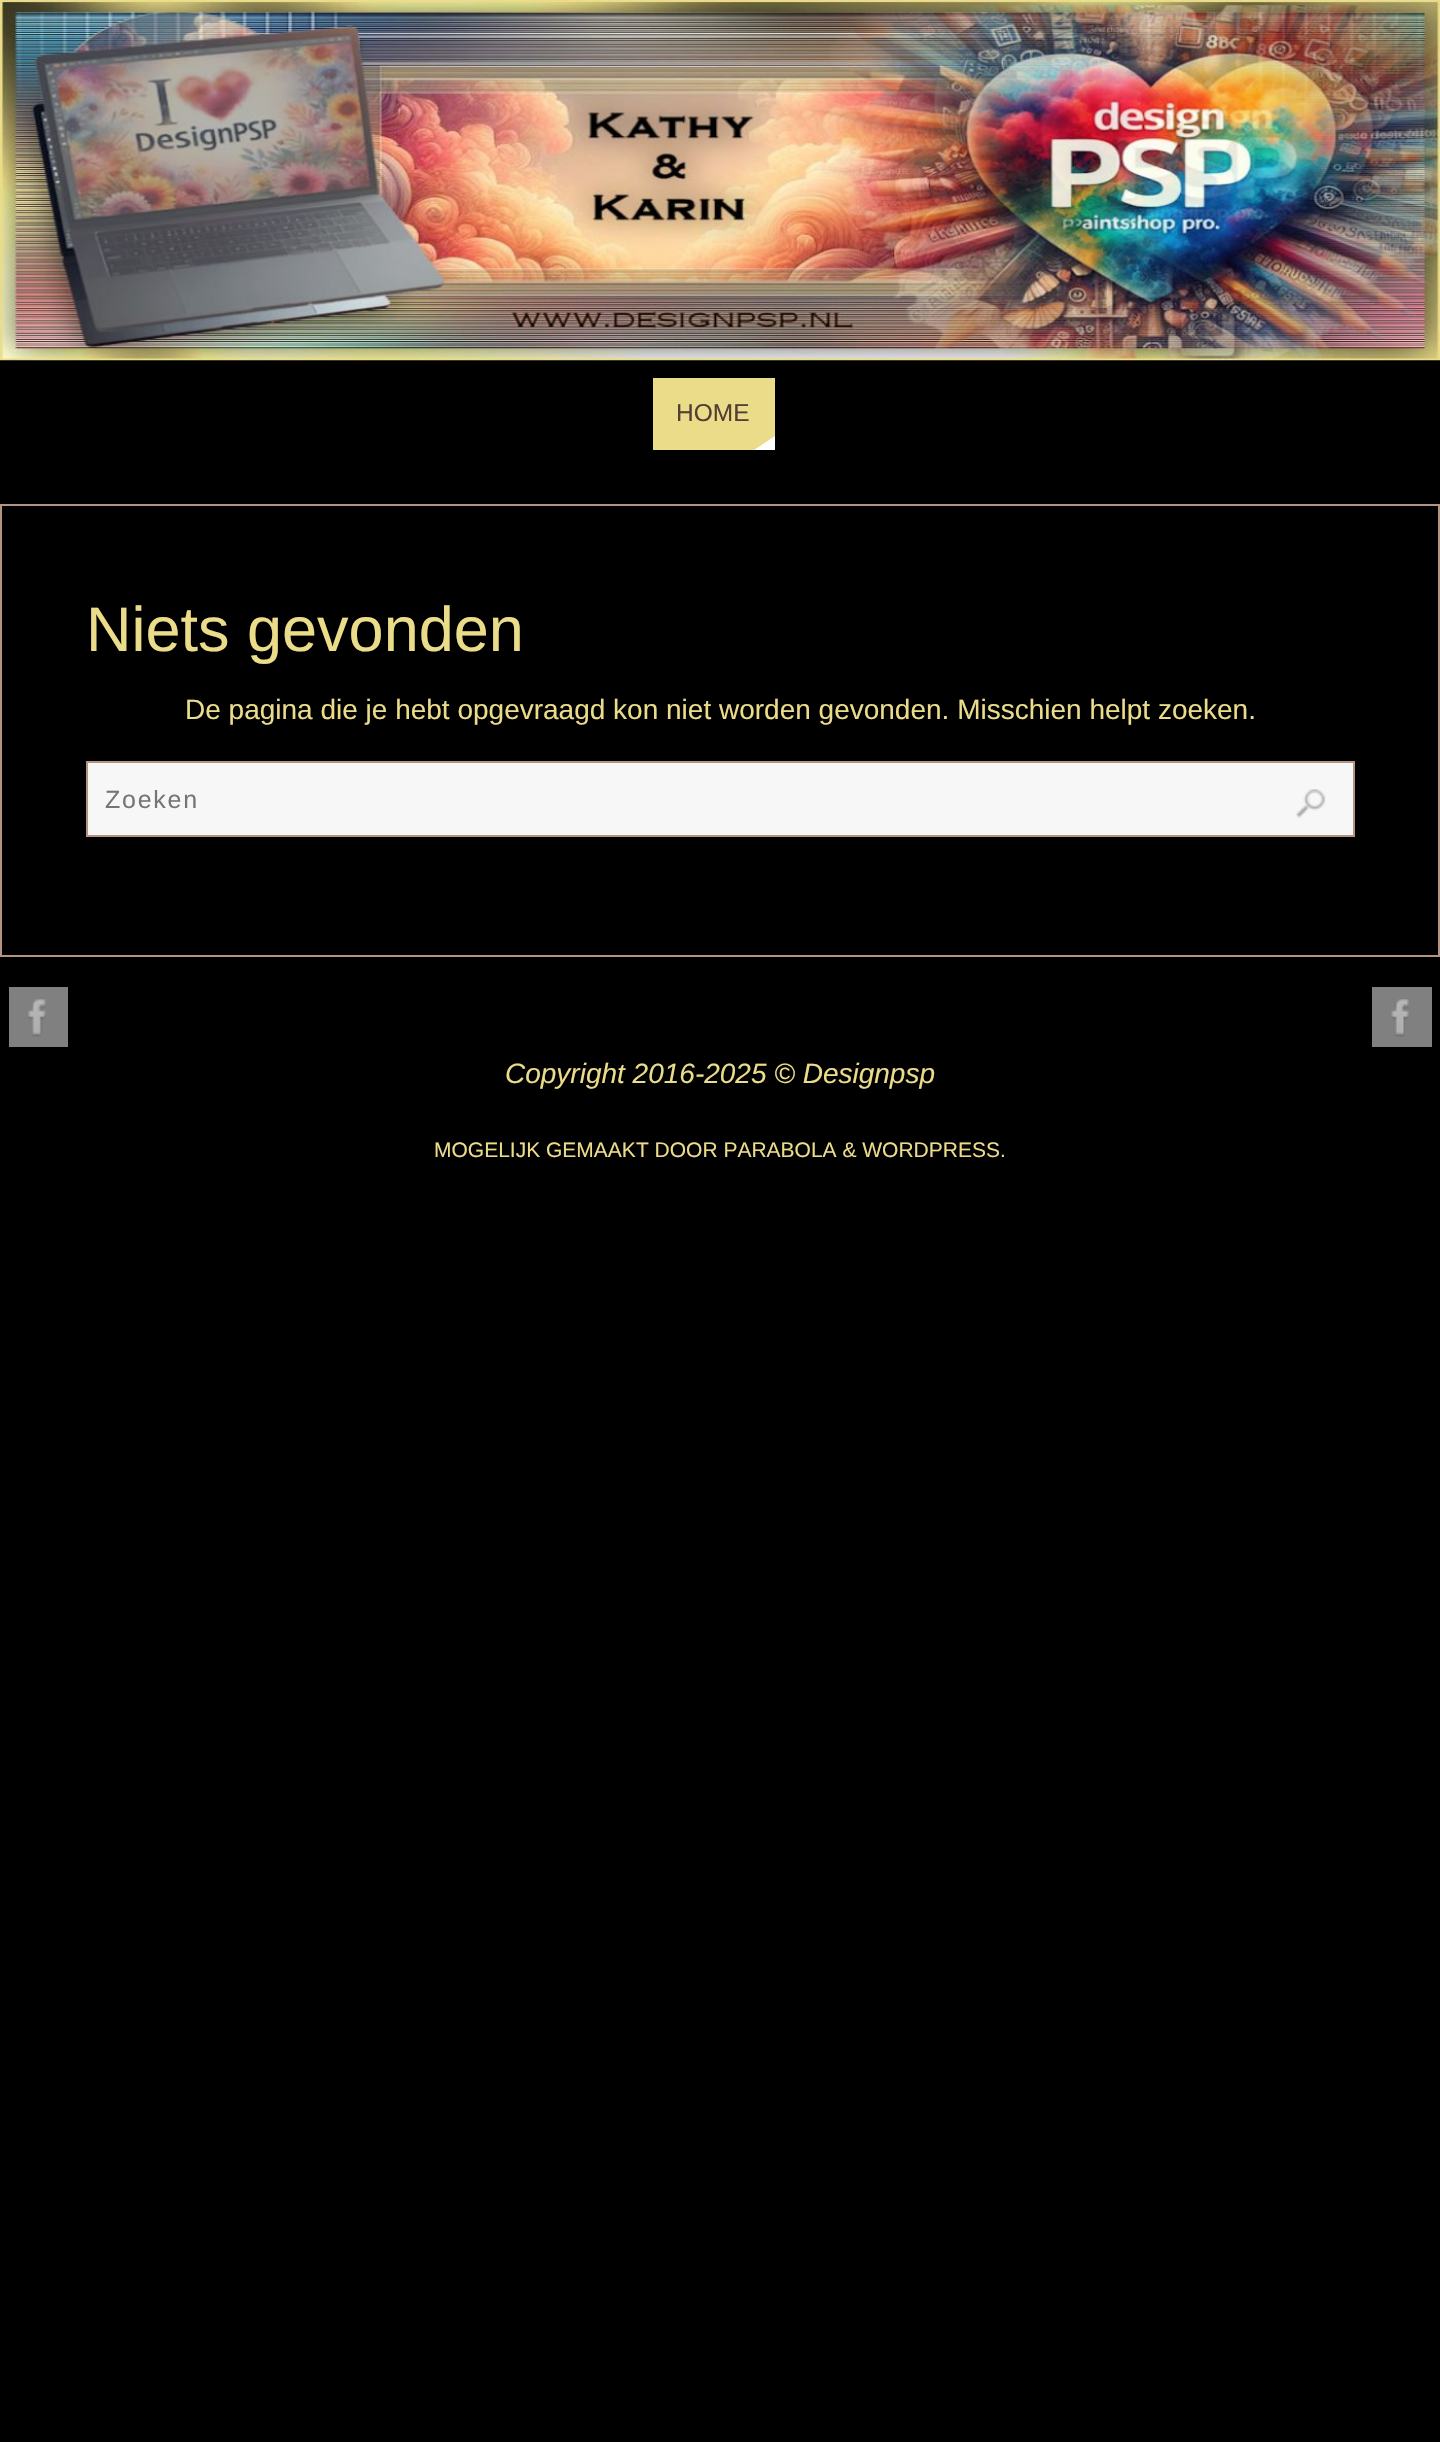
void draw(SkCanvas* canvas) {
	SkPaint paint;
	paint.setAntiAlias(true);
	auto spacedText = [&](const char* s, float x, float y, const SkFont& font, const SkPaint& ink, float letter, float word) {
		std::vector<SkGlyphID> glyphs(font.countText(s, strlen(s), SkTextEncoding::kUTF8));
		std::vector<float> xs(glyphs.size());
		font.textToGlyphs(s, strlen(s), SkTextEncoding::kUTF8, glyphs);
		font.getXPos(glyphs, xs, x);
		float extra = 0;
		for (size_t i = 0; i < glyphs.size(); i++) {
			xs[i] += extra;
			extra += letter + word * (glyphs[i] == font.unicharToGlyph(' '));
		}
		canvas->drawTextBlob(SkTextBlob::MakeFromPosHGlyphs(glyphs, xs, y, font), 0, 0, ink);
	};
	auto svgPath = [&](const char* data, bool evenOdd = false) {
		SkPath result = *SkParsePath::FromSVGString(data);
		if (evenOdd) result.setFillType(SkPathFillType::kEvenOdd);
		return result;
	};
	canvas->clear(0xff000000);
	canvas->drawImageRect(SkImages::DeferredFromEncodedData(SkData::MakeFromFileName("img1.png")), SkRect::MakeXYWH(0, 0, 1440, 361), SkSamplingOptions());
	paint.setColor(0xffebdc89);
	canvas->drawRect(SkRect::MakeXYWH(653, 378, 122, 72), paint);
	SkFont f1(fontMgr->matchFamilyStyle("Liberation Sans", SkFontStyle::Normal()), 24.5);
	f1.setSubpixel(true);
	paint.setColor(0xff543f34);
	canvas->drawString("HOME", 676, 421, f1, paint);
	paint.setColor(0xffffffff);
	canvas->drawPath(svgPath("M775 450H754L775 436Z"), paint);
	paint.setStroke(true);
	paint.setStrokeWidth(2);
	paint.setColor(0xffb39483);
	canvas->drawRect(SkRect::MakeXYWH(1, 505, 1438, 451), paint);
	SkFont f2(fontMgr->matchFamilyStyle("Liberation Sans", SkFontStyle::Normal()), 63);
	f2.setSubpixel(true);
	paint.setStroke(false);
	paint.setColor(0xffebdc89);
	canvas->drawString("Niets gevonden", 86, 651, f2, paint);
	SkFont f3(fontMgr->matchFamilyStyle("Liberation Sans", SkFontStyle::Normal()), 28);
	f3.setSubpixel(true);
	canvas->drawString("De pagina die je hebt opgevraagd kon niet worden gevonden. Misschien helpt zoeken.", 185, 719, f3, paint);
	paint.setColor(0xfff7f7f7);
	canvas->drawRect(SkRect::MakeXYWH(87, 762, 1267, 74), paint);
	paint.setStroke(true);
	paint.setColor(0xffb39483);
	canvas->drawRect(SkRect::MakeXYWH(87, 762, 1267, 74), paint);
	SkFont f4(fontMgr->matchFamilyStyle("Liberation Sans", SkFontStyle::Normal()), 25);
	f4.setSubpixel(true);
	paint.setStroke(false);
	paint.setColor(0xff757575);
	spacedText("Zoeken", 105, 808, f4, paint, 1.75, 0);
	canvas->drawImageRect(SkImages::DeferredFromEncodedData(SkData::MakeFromFileName("img2.png")), SkRect::MakeXYWH(1296, 789, 30, 29), SkSamplingOptions());
	paint.setColor(0xff808080);
	canvas->drawRect(SkRect::MakeXYWH(9, 987, 59, 60), paint);
	canvas->drawImageRect(SkImages::DeferredFromEncodedData(SkData::MakeFromFileName("img3.png")), SkRect::MakeXYWH(28, 999, 18, 38), SkSamplingOptions());
	canvas->drawRect(SkRect::MakeXYWH(1372, 987, 60, 60), paint);
	canvas->drawImageRect(SkImages::DeferredFromEncodedData(SkData::MakeFromFileName("img4.png")), SkRect::MakeXYWH(1391, 999, 18, 38), SkSamplingOptions());
	SkFont f5(fontMgr->matchFamilyStyle("Liberation Sans", SkFontStyle::Italic()), 28);
	f5.setSubpixel(true);
	paint.setColor(0xffebdc89);
	canvas->drawString("Copyright 2016-2025 © Designpsp", 505, 1083, f5, paint);
	SkFont f6(fontMgr->matchFamilyStyle("Liberation Sans", SkFontStyle::Normal()), 21);
	f6.setSubpixel(true);
	canvas->drawString("MOGELIJK GEMAAKT DOOR PARABOLA & WORDPRESS.", 434, 1157, f6, paint);
}
